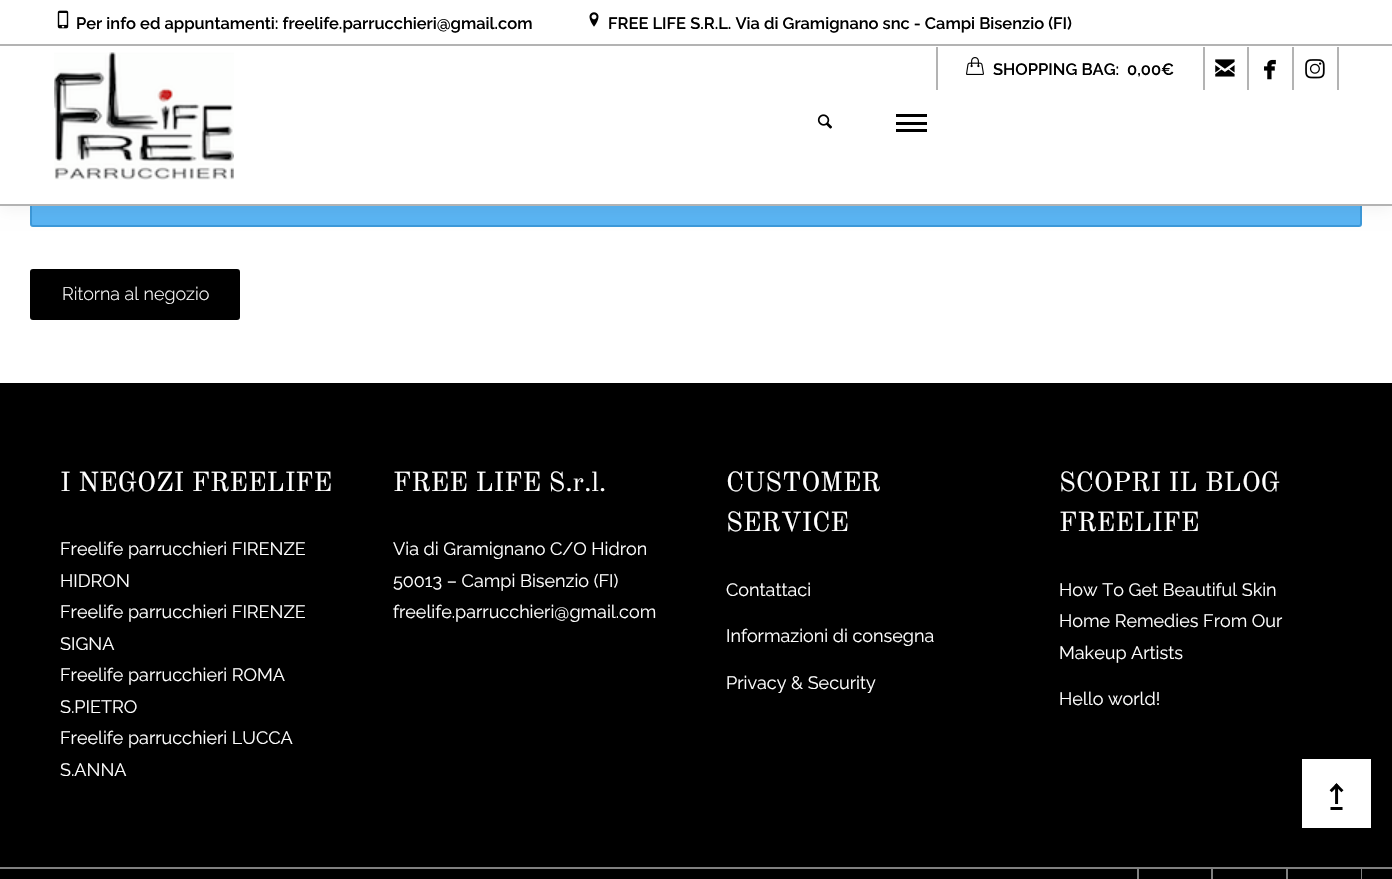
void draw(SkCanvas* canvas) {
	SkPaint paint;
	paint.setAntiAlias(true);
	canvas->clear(0xffffffff);
	paint.setColor(0xff5ab4f3);
	canvas->drawRoundRect(SkRect::MakeXYWH(31, 151, 1330, 75), 2, 2, paint);
	paint.setStroke(true);
	paint.setStrokeWidth(2);
	paint.setColor(0xff3d99d9);
	canvas->drawRoundRect(SkRect::MakeXYWH(31, 151, 1330, 75), 2, 2, paint);
	paint.setStroke(false);
	paint.setColor(0x0d000000);
	paint.setMaskFilter(SkMaskFilter::MakeBlur(kNormal_SkBlurStyle, 7.5));
	canvas->drawRect(SkRect::MakeXYWH(0, 3, 1392, 206), paint);
	paint.setMaskFilter(nullptr);
	paint.setColor(0xffffffff);
	canvas->drawRect(SkRect::MakeXYWH(0, 0, 1392, 204), paint);
	paint.setColor(0xffb3b3b3);
	canvas->drawRect(SkRect::MakeXYWH(0, 204, 1392, 2), paint);
	canvas->drawRect(SkRect::MakeXYWH(0, 44, 1392, 2), paint);
	canvas->drawImageRect(SkImages::DeferredFromEncodedData(SkData::MakeFromFileName("img1.png")), SkRect::MakeXYWH(57, 10, 12, 19), SkSamplingOptions());
	SkFont f1(fontMgr->matchFamilyStyle("Raleway", SkFontStyle(600, SkFontStyle::kNormal_Width, SkFontStyle::kUpright_Slant)), 16.5);
	f1.setSubpixel(true);
	paint.setColor(0xff000000);
	canvas->drawString("Per info ed appuntamenti: freelife.parrucchieri@gmail.com", 76, 29, f1, paint);
	canvas->drawImageRect(SkImages::DeferredFromEncodedData(SkData::MakeFromFileName("img2.png")), SkRect::MakeXYWH(589, 12, 10, 15), SkSamplingOptions());
	canvas->drawString("FREE LIFE S.R.L. Via di Gramignano snc - Campi Bisenzio (FI)", 608, 29, f1, paint);
	paint.setColor(0xffb3b3b3);
	canvas->drawRect(SkRect::MakeXYWH(936, 47, 2, 43), paint);
	canvas->drawImageRect(SkImages::DeferredFromEncodedData(SkData::MakeFromFileName("img3.png")), SkRect::MakeXYWH(966, 57, 18, 18), SkSamplingOptions());
	paint.setColor(0xff000000);
	canvas->drawString("SHOPPING BAG:", 993, 75, f1, paint);
	canvas->drawString("0,00€", 1127, 75, f1, paint);
	paint.setColor(0xffb3b3b3);
	canvas->drawRect(SkRect::MakeXYWH(1247, 47, 2, 43), paint);
	canvas->drawRect(SkRect::MakeXYWH(1203, 47, 2, 43), paint);
	canvas->drawImageRect(SkImages::DeferredFromEncodedData(SkData::MakeFromFileName("img4.png")), SkRect::MakeXYWH(1215, 59, 20, 18), SkSamplingOptions());
	canvas->drawRect(SkRect::MakeXYWH(1292, 47, 2, 43), paint);
	canvas->drawImageRect(SkImages::DeferredFromEncodedData(SkData::MakeFromFileName("img5.png")), SkRect::MakeXYWH(1264, 59, 12, 21), SkSamplingOptions());
	canvas->drawRect(SkRect::MakeXYWH(1337, 47, 2, 43), paint);
	canvas->drawImageRect(SkImages::DeferredFromEncodedData(SkData::MakeFromFileName("img6.png")), SkRect::MakeXYWH(1305, 59, 20, 20), SkSamplingOptions());
	canvas->drawImageRect(SkImages::DeferredFromEncodedData(SkData::MakeFromFileName("img7.png")), SkRect::MakeXYWH(54, 52, 180, 128), SkSamplingOptions());
	canvas->drawImageRect(SkImages::DeferredFromEncodedData(SkData::MakeFromFileName("img8.png")), SkRect::MakeXYWH(817, 114, 15, 15), SkSamplingOptions());
	paint.setColor(0xff000000);
	canvas->drawRect(SkRect::MakeXYWH(896, 122, 31, 3), paint);
	canvas->drawRect(SkRect::MakeXYWH(896, 114, 31, 3), paint);
	canvas->drawRect(SkRect::MakeXYWH(896, 129, 31, 3), paint);
	canvas->drawRoundRect(SkRect::MakeXYWH(31, 270, 208, 49), 2, 2, paint);
	paint.setStroke(true);
	canvas->drawRoundRect(SkRect::MakeXYWH(31, 270, 208, 49), 2, 2, paint);
	SkFont f2(fontMgr->matchFamilyStyle("Raleway", SkFontStyle(300, SkFontStyle::kNormal_Width, SkFontStyle::kUpright_Slant)), 18);
	f2.setSubpixel(true);
	paint.setStroke(false);
	paint.setColor(0xffffffff);
	canvas->drawString("Ritorna al negozio", 62, 300, f2, paint);
	paint.setColor(0xff000000);
	canvas->drawRect(SkRect::MakeXYWH(0, 383, 1392, 484), paint);
	SkFont f3(fontMgr->matchFamilyStyle("Old Standard TT", SkFontStyle::Normal()), 27);
	f3.setSubpixel(true);
	paint.setColor(0xffffffff);
	canvas->drawString("I NEGOZI FREELIFE", 60, 491, f3, paint);
	SkFont f4(fontMgr->matchFamilyStyle("Raleway", SkFontStyle::Normal()), 18);
	f4.setSubpixel(true);
	canvas->drawString("Freelife parrucchieri FIRENZE", 60, 555, f4, paint);
	canvas->drawString("HIDRON", 60, 587, f4, paint);
	canvas->drawString("Freelife parrucchieri FIRENZE", 60, 618, f4, paint);
	canvas->drawString("SIGNA", 60, 650, f4, paint);
	canvas->drawString("Freelife parrucchieri ROMA", 60, 681, f4, paint);
	canvas->drawString("S.PIETRO", 60, 713, f4, paint);
	canvas->drawString("Freelife parrucchieri LUCCA", 60, 744, f4, paint);
	canvas->drawString("S.ANNA", 60, 776, f4, paint);
	canvas->drawString("FREE LIFE S.r.l.", 393, 491, f3, paint);
	canvas->drawString("Via di Gramignano C/O Hidron", 393, 555, f4, paint);
	canvas->drawString("50013 – Campi Bisenzio (FI)", 393, 587, f4, paint);
	canvas->drawString("freelife.parrucchieri@gmail.com", 393, 618, f4, paint);
	canvas->drawString("CUSTOMER", 726, 491, f3, paint);
	canvas->drawString("SERVICE", 726, 531, f3, paint);
	canvas->drawString("Contattaci", 726, 596, f4, paint);
	canvas->drawString("Informazioni di consegna", 726, 642, f4, paint);
	canvas->drawString("Privacy & Security", 726, 689, f4, paint);
	canvas->drawString("SCOPRI IL BLOG", 1059, 491, f3, paint);
	canvas->drawString("FREELIFE", 1059, 531, f3, paint);
	canvas->drawString("How To Get Beautiful Skin", 1059, 596, f4, paint);
	canvas->drawString("Home Remedies From Our", 1059, 627, f4, paint);
	canvas->drawString("Makeup Artists", 1059, 659, f4, paint);
	canvas->drawString("Hello world!", 1059, 705, f4, paint);
	paint.setColor(0xff000000);
	canvas->drawRect(SkRect::MakeXYWH(0, 869, 1392, 10), paint);
	paint.setColor(0xff808080);
	canvas->drawRect(SkRect::MakeXYWH(0, 867, 1392, 2), paint);
	canvas->drawRect(SkRect::MakeXYWH(1211, 869, 2, 10), paint);
	canvas->drawRect(SkRect::MakeXYWH(1137, 869, 2, 10), paint);
	canvas->drawRect(SkRect::MakeXYWH(1286, 869, 2, 10), paint);
	canvas->drawRect(SkRect::MakeXYWH(1361, 869, 1, 10), paint);
	paint.setColor(0xffffffff);
	canvas->drawRect(SkRect::MakeXYWH(1302, 759, 69, 69), paint);
	canvas->drawImageRect(SkImages::DeferredFromEncodedData(SkData::MakeFromFileName("img9.png")), SkRect::MakeXYWH(1299, 756, 75, 75), SkSamplingOptions());
}
